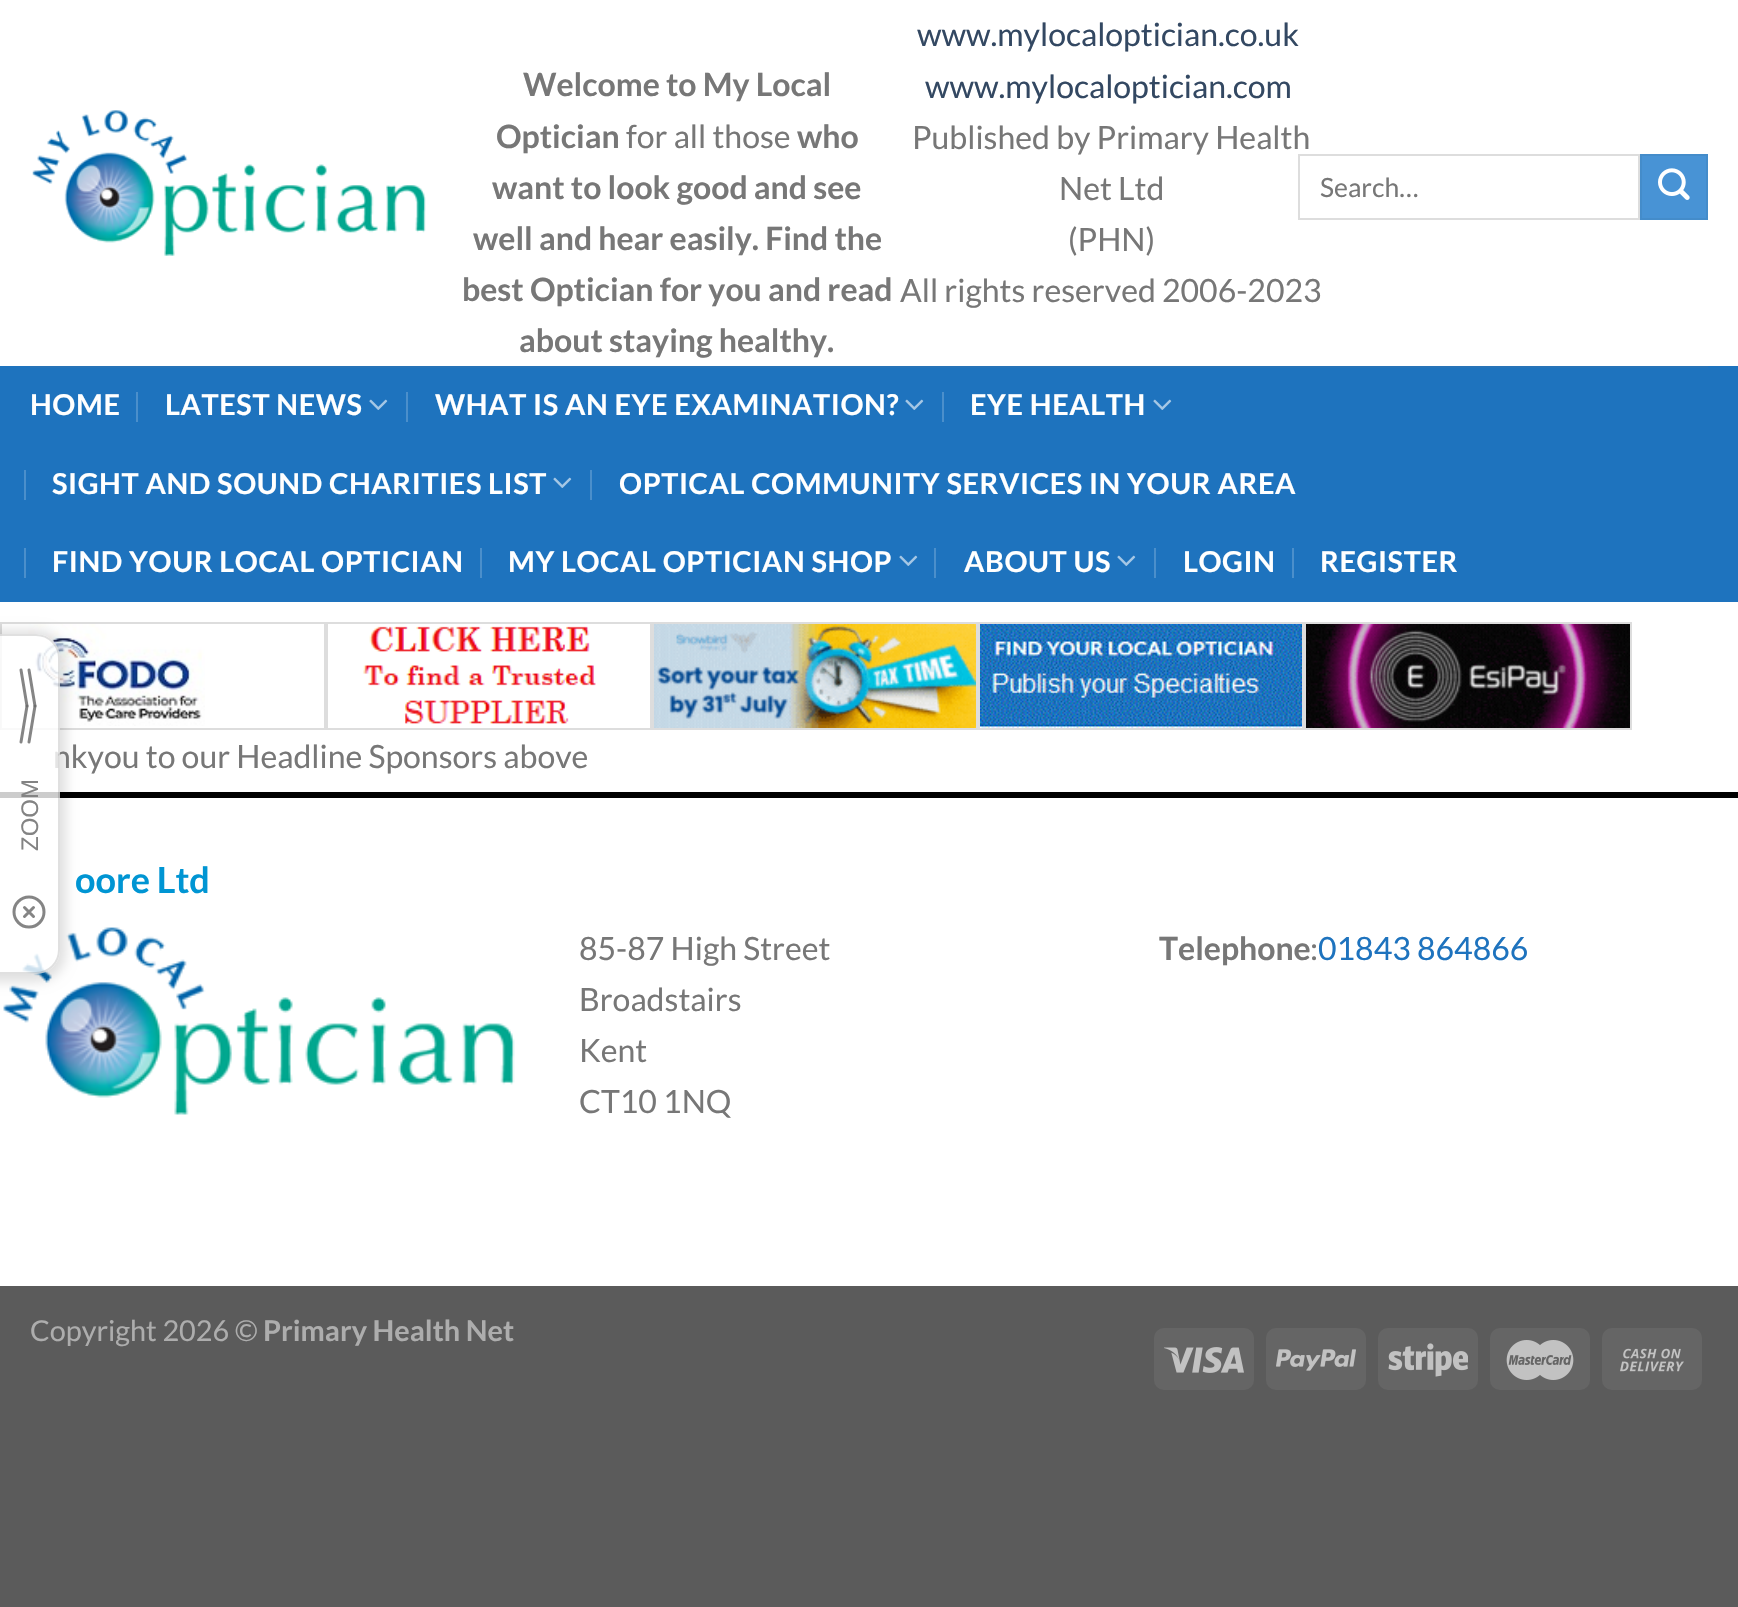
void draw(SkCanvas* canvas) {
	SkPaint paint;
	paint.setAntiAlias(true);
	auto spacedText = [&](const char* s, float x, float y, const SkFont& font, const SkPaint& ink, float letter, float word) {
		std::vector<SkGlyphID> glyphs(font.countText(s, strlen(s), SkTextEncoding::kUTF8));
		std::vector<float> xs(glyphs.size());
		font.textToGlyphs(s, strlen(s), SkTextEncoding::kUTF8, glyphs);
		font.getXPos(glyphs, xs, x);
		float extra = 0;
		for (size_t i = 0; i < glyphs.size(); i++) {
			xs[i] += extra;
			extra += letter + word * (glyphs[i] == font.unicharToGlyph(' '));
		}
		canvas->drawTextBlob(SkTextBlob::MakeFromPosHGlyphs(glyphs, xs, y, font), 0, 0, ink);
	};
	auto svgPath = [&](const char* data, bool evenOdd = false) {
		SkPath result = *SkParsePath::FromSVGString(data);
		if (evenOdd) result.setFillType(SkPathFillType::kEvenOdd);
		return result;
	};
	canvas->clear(0xff5b5b5b);
	paint.setColor(0xffffffff);
	canvas->drawRect(SkRect::MakeXYWH(0, 0, 1738, 1286), paint);
	paint.setColor(0xff000000);
	canvas->drawRect(SkRect::MakeXYWH(0, 792, 1738, 6), paint);
	paint.setStroke(true);
	paint.setStrokeWidth(2);
	paint.setColor(0xffdddddd);
	canvas->drawRect(SkRect::MakeXYWH(1, 623, 324, 106), paint);
	canvas->drawImageRect(SkImages::DeferredFromEncodedData(SkData::MakeFromFileName("img4.png")), SkRect::MakeXYWH(28, 624, 177, 102), SkSamplingOptions());
	canvas->drawImageRect(SkImages::DeferredFromEncodedData(SkData::MakeFromFileName("img9.png")), SkRect::MakeXYWH(3, 927, 512, 188), SkSamplingOptions());
	canvas->save();
	canvas->clipPath(svgPath("M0 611H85V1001H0ZM-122 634H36C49.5 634 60 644.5 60 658V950C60 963.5 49.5 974 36 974H-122C-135.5 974-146 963.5-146 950V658C-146 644.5-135.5 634-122 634Z", true), true);
	paint.setStroke(false);
	paint.setColor(0x1f000000);
	paint.setMaskFilter(SkMaskFilter::MakeBlur(kNormal_SkBlurStyle, 6));
	canvas->drawRoundRect(SkRect::MakeXYWH(-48, 630, 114, 352), 30, 30, paint);
	paint.setMaskFilter(nullptr);
	canvas->restore();
	SkFont f1(fontMgr->matchFamilyStyle("Lato", SkFontStyle::Normal()), 32);
	f1.setSubpixel(true);
	paint.setColor(0xff777777);
	canvas->drawString("nkyou to our Headline Sponsors above", 53, 768, f1, paint);
	paint.setColor(0xccffffff);
	canvas->drawRoundRect(SkRect::MakeXYWH(-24, 634, 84, 340), 24, 24, paint);
	paint.setStroke(true);
	paint.setColor(0x1f000000);
	canvas->drawRoundRect(SkRect::MakeXYWH(-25, 635, 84, 338), 23, 23, paint);
	paint.setStrokeWidth(3);
	paint.setStrokeCap(SkPaint::kRound_Cap);
	paint.setColor(0xff858585);
	canvas->drawPath(svgPath("M29 670L35 706"), paint);
	paint.setColor(0xcc666666);
	canvas->drawPath(svgPath("M35 706L29 742"), paint);
	paint.setColor(0xff858585);
	canvas->drawPath(svgPath("M27 706L21 670"), paint);
	paint.setColor(0xcc666666);
	canvas->drawPath(svgPath("M21 742L27 706"), paint);
	SkFont f2(fontMgr->matchFamilyStyle("Liberation Sans", SkFontStyle::Normal()), 24);
	f2.setSubpixel(true);
	paint.setStroke(false);
	paint.setColor(0xff838383);
	canvas->save();
	canvas->rotate(-90, 38, 851);
	canvas->drawString("ZOOM", 38, 851, f2, paint);
	canvas->restore();
	paint.setStroke(true);
	paint.setStrokeCap(SkPaint::kButt_Cap);
	paint.setColor(0xff858585);
	canvas->drawCircle(29, 912, 15, paint);
	paint.setStrokeCap(SkPaint::kRound_Cap);
	paint.setStrokeJoin(SkPaint::kRound_Join);
	canvas->drawPath(svgPath("M33.5 907.5L24.5 916.5M24.5 907.5L33.5 916.5"), paint);
	canvas->drawImageRect(SkImages::DeferredFromEncodedData(SkData::MakeFromFileName("img1.png")), SkRect::MakeXYWH(32, 110, 394, 146), SkSamplingOptions());
	SkFont f3(fontMgr->matchFamilyStyle("Lato", SkFontStyle::Bold()), 32);
	f3.setSubpixel(true);
	paint.setStroke(false);
	paint.setColor(0xff777777);
	canvas->drawString("Welcome to My Local", 523, 96, f3, paint);
	canvas->drawString("Optician", 496, 148, f3, paint);
	canvas->drawString("for all those", 626, 148, f1, paint);
	canvas->drawString("who", 797, 148, f3, paint);
	canvas->drawString("want to look good and see", 492, 199, f3, paint);
	canvas->drawString("well and hear easily. Find the", 473, 250, f3, paint);
	canvas->drawString("best Optician for you and read", 462, 301, f3, paint);
	canvas->drawString("about staying healthy.", 519, 352, f3, paint);
	paint.setColor(0xff334862);
	canvas->drawString("www.mylocaloptician.co.uk", 917, 46, f1, paint);
	canvas->drawString("www.mylocaloptician.com", 925, 98, f1, paint);
	paint.setColor(0xff777777);
	canvas->drawString("Published by Primary Health", 912, 149, f1, paint);
	canvas->drawString("Net Ltd", 1059, 200, f1, paint);
	canvas->drawString("(PHN)", 1068, 251, f1, paint);
	canvas->drawString("All rights reserved 2006-2023", 900, 302, f1, paint);
	paint.setStroke(true);
	paint.setStrokeWidth(2);
	paint.setStrokeCap(SkPaint::kButt_Cap);
	paint.setStrokeJoin(SkPaint::kMiter_Join);
	paint.setColor(0xffdddddd);
	canvas->drawRect(SkRect::MakeXYWH(1299, 155, 340, 64), paint);
	SkFont f4(fontMgr->matchFamilyStyle("Lato", SkFontStyle::Normal()), 26.5);
	f4.setSubpixel(true);
	paint.setStroke(false);
	paint.setColor(0xff777777);
	canvas->drawString("Search…", 1320, 197, f4, paint);
	paint.setColor(0xff4893d5);
	canvas->drawRect(SkRect::MakeXYWH(1641, 155, 66, 64), paint);
	paint.setStroke(true);
	paint.setColor(0xff448cca);
	canvas->drawRect(SkRect::MakeXYWH(1641, 155, 66, 64), paint);
	canvas->drawImageRect(SkImages::DeferredFromEncodedData(SkData::MakeFromFileName("img2.png")), SkRect::MakeXYWH(1658, 168, 32, 32), SkSamplingOptions());
	paint.setStroke(false);
	paint.setColor(0xff1e73be);
	canvas->drawRect(SkRect::MakeXYWH(0, 366, 1738, 236), paint);
	paint.setColor(0xff2773b7);
	canvas->drawRect(SkRect::MakeXYWH(30, 366, 1678, 2), paint);
	SkFont f5(fontMgr->matchFamilyStyle("Lato", SkFontStyle::Bold()), 28.8);
	f5.setSubpixel(true);
	paint.setColor(0xffffffff);
	spacedText("HOME", 30, 415, f5, paint, 0.6, 0);
	paint.setColor(0xff4b8fcb);
	canvas->drawRect(SkRect::MakeXYWH(136, 392, 2, 30), paint);
	paint.setColor(0xffffffff);
	spacedText("LATEST NEWS", 165, 415, f5, paint, 0.6, 0);
	canvas->drawImageRect(SkImages::DeferredFromEncodedData(SkData::MakeFromFileName("img3.png")), SkRect::MakeXYWH(369, 399, 19, 11), SkSamplingOptions());
	paint.setColor(0xff4b8fcb);
	canvas->drawRect(SkRect::MakeXYWH(406, 392, 2, 30), paint);
	paint.setColor(0xffffffff);
	spacedText("WHAT IS AN EYE EXAMINATION?", 435, 415, f5, paint, 0.6, 0);
	canvas->drawImageRect(SkImages::DeferredFromEncodedData(SkData::MakeFromFileName("img3.png")), SkRect::MakeXYWH(905, 399, 19, 11), SkSamplingOptions());
	paint.setColor(0xff4b8fcb);
	canvas->drawRect(SkRect::MakeXYWH(942, 392, 2, 30), paint);
	paint.setColor(0xffffffff);
	spacedText("EYE HEALTH", 970, 415, f5, paint, 0.6, 0);
	canvas->drawImageRect(SkImages::DeferredFromEncodedData(SkData::MakeFromFileName("img3.png")), SkRect::MakeXYWH(1153, 399, 19, 11), SkSamplingOptions());
	paint.setColor(0xff4b8fcb);
	canvas->drawRect(SkRect::MakeXYWH(24, 470, 2, 30), paint);
	paint.setColor(0xffffffff);
	spacedText("SIGHT AND SOUND CHARITIES LIST", 52, 494, f5, paint, 0.6, 0);
	canvas->drawImageRect(SkImages::DeferredFromEncodedData(SkData::MakeFromFileName("img3.png")), SkRect::MakeXYWH(553, 477, 19, 11), SkSamplingOptions());
	paint.setColor(0xff4b8fcb);
	canvas->drawRect(SkRect::MakeXYWH(590, 470, 2, 30), paint);
	paint.setColor(0xffffffff);
	spacedText("OPTICAL COMMUNITY SERVICES IN YOUR AREA", 619, 494, f5, paint, 0.6, 0);
	paint.setColor(0xff4b8fcb);
	canvas->drawRect(SkRect::MakeXYWH(24, 548, 2, 30), paint);
	paint.setColor(0xffffffff);
	spacedText("FIND YOUR LOCAL OPTICIAN", 52, 572, f5, paint, 0.6, 0);
	paint.setColor(0xff4b8fcb);
	canvas->drawRect(SkRect::MakeXYWH(480, 548, 2, 30), paint);
	paint.setColor(0xffffffff);
	spacedText("MY LOCAL OPTICIAN SHOP", 508, 572, f5, paint, 0.6, 0);
	canvas->drawImageRect(SkImages::DeferredFromEncodedData(SkData::MakeFromFileName("img3.png")), SkRect::MakeXYWH(899, 555, 19, 11), SkSamplingOptions());
	paint.setColor(0xff4b8fcb);
	canvas->drawRect(SkRect::MakeXYWH(934, 548, 2, 30), paint);
	paint.setColor(0xffffffff);
	spacedText("ABOUT US", 964, 572, f5, paint, 0.6, 0);
	canvas->drawImageRect(SkImages::DeferredFromEncodedData(SkData::MakeFromFileName("img3.png")), SkRect::MakeXYWH(1117, 555, 19, 11), SkSamplingOptions());
	paint.setColor(0xff4b8fcb);
	canvas->drawRect(SkRect::MakeXYWH(1154, 548, 2, 30), paint);
	paint.setColor(0xffffffff);
	spacedText("LOGIN", 1183, 572, f5, paint, 0.6, 0);
	paint.setColor(0xff4b8fcb);
	canvas->drawRect(SkRect::MakeXYWH(1292, 548, 2, 30), paint);
	paint.setColor(0xffffffff);
	spacedText("REGISTER", 1320, 572, f5, paint, 0.6, 0);
	paint.setStroke(true);
	paint.setColor(0xffdddddd);
	canvas->drawRect(SkRect::MakeXYWH(327, 623, 324, 106), paint);
	canvas->drawImageRect(SkImages::DeferredFromEncodedData(SkData::MakeFromFileName("img5.png")), SkRect::MakeXYWH(363, 626, 233, 98), SkSamplingOptions());
	canvas->drawRect(SkRect::MakeXYWH(653, 623, 324, 106), paint);
	canvas->drawImageRect(SkImages::DeferredFromEncodedData(SkData::MakeFromFileName("img6.png")), SkRect::MakeXYWH(654, 624, 322, 104), SkSamplingOptions());
	canvas->drawRect(SkRect::MakeXYWH(979, 623, 324, 106), paint);
	canvas->drawImageRect(SkImages::DeferredFromEncodedData(SkData::MakeFromFileName("img7.png")), SkRect::MakeXYWH(980, 624, 322, 104), SkSamplingOptions());
	canvas->drawRect(SkRect::MakeXYWH(1305, 623, 326, 106), paint);
	canvas->drawImageRect(SkImages::DeferredFromEncodedData(SkData::MakeFromFileName("img8.png")), SkRect::MakeXYWH(1306, 624, 324, 104), SkSamplingOptions());
	SkFont f6(fontMgr->matchFamilyStyle("Lato", SkFontStyle::Bold()), 36);
	f6.setSubpixel(true);
	paint.setStroke(false);
	paint.setColor(0xff0095d3);
	canvas->drawString("oore Ltd", 75, 893, f6, paint);
	paint.setColor(0xff777777);
	canvas->drawString("85-87 High Street", 579, 960, f1, paint);
	canvas->drawString("Broadstairs", 579, 1011, f1, paint);
	canvas->drawString("Kent", 579, 1062, f1, paint);
	canvas->drawString("CT10 1NQ", 579, 1113, f1, paint);
	canvas->drawString("Telephone", 1159, 960, f3, paint);
	canvas->drawString(":", 1310, 960, f1, paint);
	paint.setColor(0xff1e73be);
	canvas->drawString("01843 864866", 1318, 960, f1, paint);
	SkFont f7(fontMgr->matchFamilyStyle("Lato", SkFontStyle::Normal()), 28.8);
	f7.setSubpixel(true);
	paint.setColor(0xffadadad);
	canvas->drawString("Copyright 2026 ©", 30, 1341, f7, paint);
	canvas->drawString("Primary Health Net", 263, 1341, f5, paint);
	paint.setColor(0xff656565);
	canvas->drawRoundRect(SkRect::MakeXYWH(1154, 1328, 100, 62), 10, 10, paint);
	canvas->drawImageRect(SkImages::DeferredFromEncodedData(SkData::MakeFromFileName("img10.png")), SkRect::MakeXYWH(1164, 1347, 80, 26), SkSamplingOptions());
	canvas->drawRoundRect(SkRect::MakeXYWH(1266, 1328, 100, 62), 10, 10, paint);
	canvas->drawImageRect(SkImages::DeferredFromEncodedData(SkData::MakeFromFileName("img11.png")), SkRect::MakeXYWH(1276, 1349, 80, 22), SkSamplingOptions());
	canvas->drawRoundRect(SkRect::MakeXYWH(1378, 1328, 100, 62), 10, 10, paint);
	canvas->drawImageRect(SkImages::DeferredFromEncodedData(SkData::MakeFromFileName("img12.png")), SkRect::MakeXYWH(1388, 1343, 80, 34), SkSamplingOptions());
	canvas->drawRoundRect(SkRect::MakeXYWH(1490, 1328, 100, 62), 10, 10, paint);
	canvas->drawImageRect(SkImages::DeferredFromEncodedData(SkData::MakeFromFileName("img13.png")), SkRect::MakeXYWH(1506, 1340, 68, 40), SkSamplingOptions());
	canvas->drawRoundRect(SkRect::MakeXYWH(1602, 1328, 100, 62), 10, 10, paint);
	canvas->drawImageRect(SkImages::DeferredFromEncodedData(SkData::MakeFromFileName("img14.png")), SkRect::MakeXYWH(1620, 1348, 64, 24), SkSamplingOptions());
}
